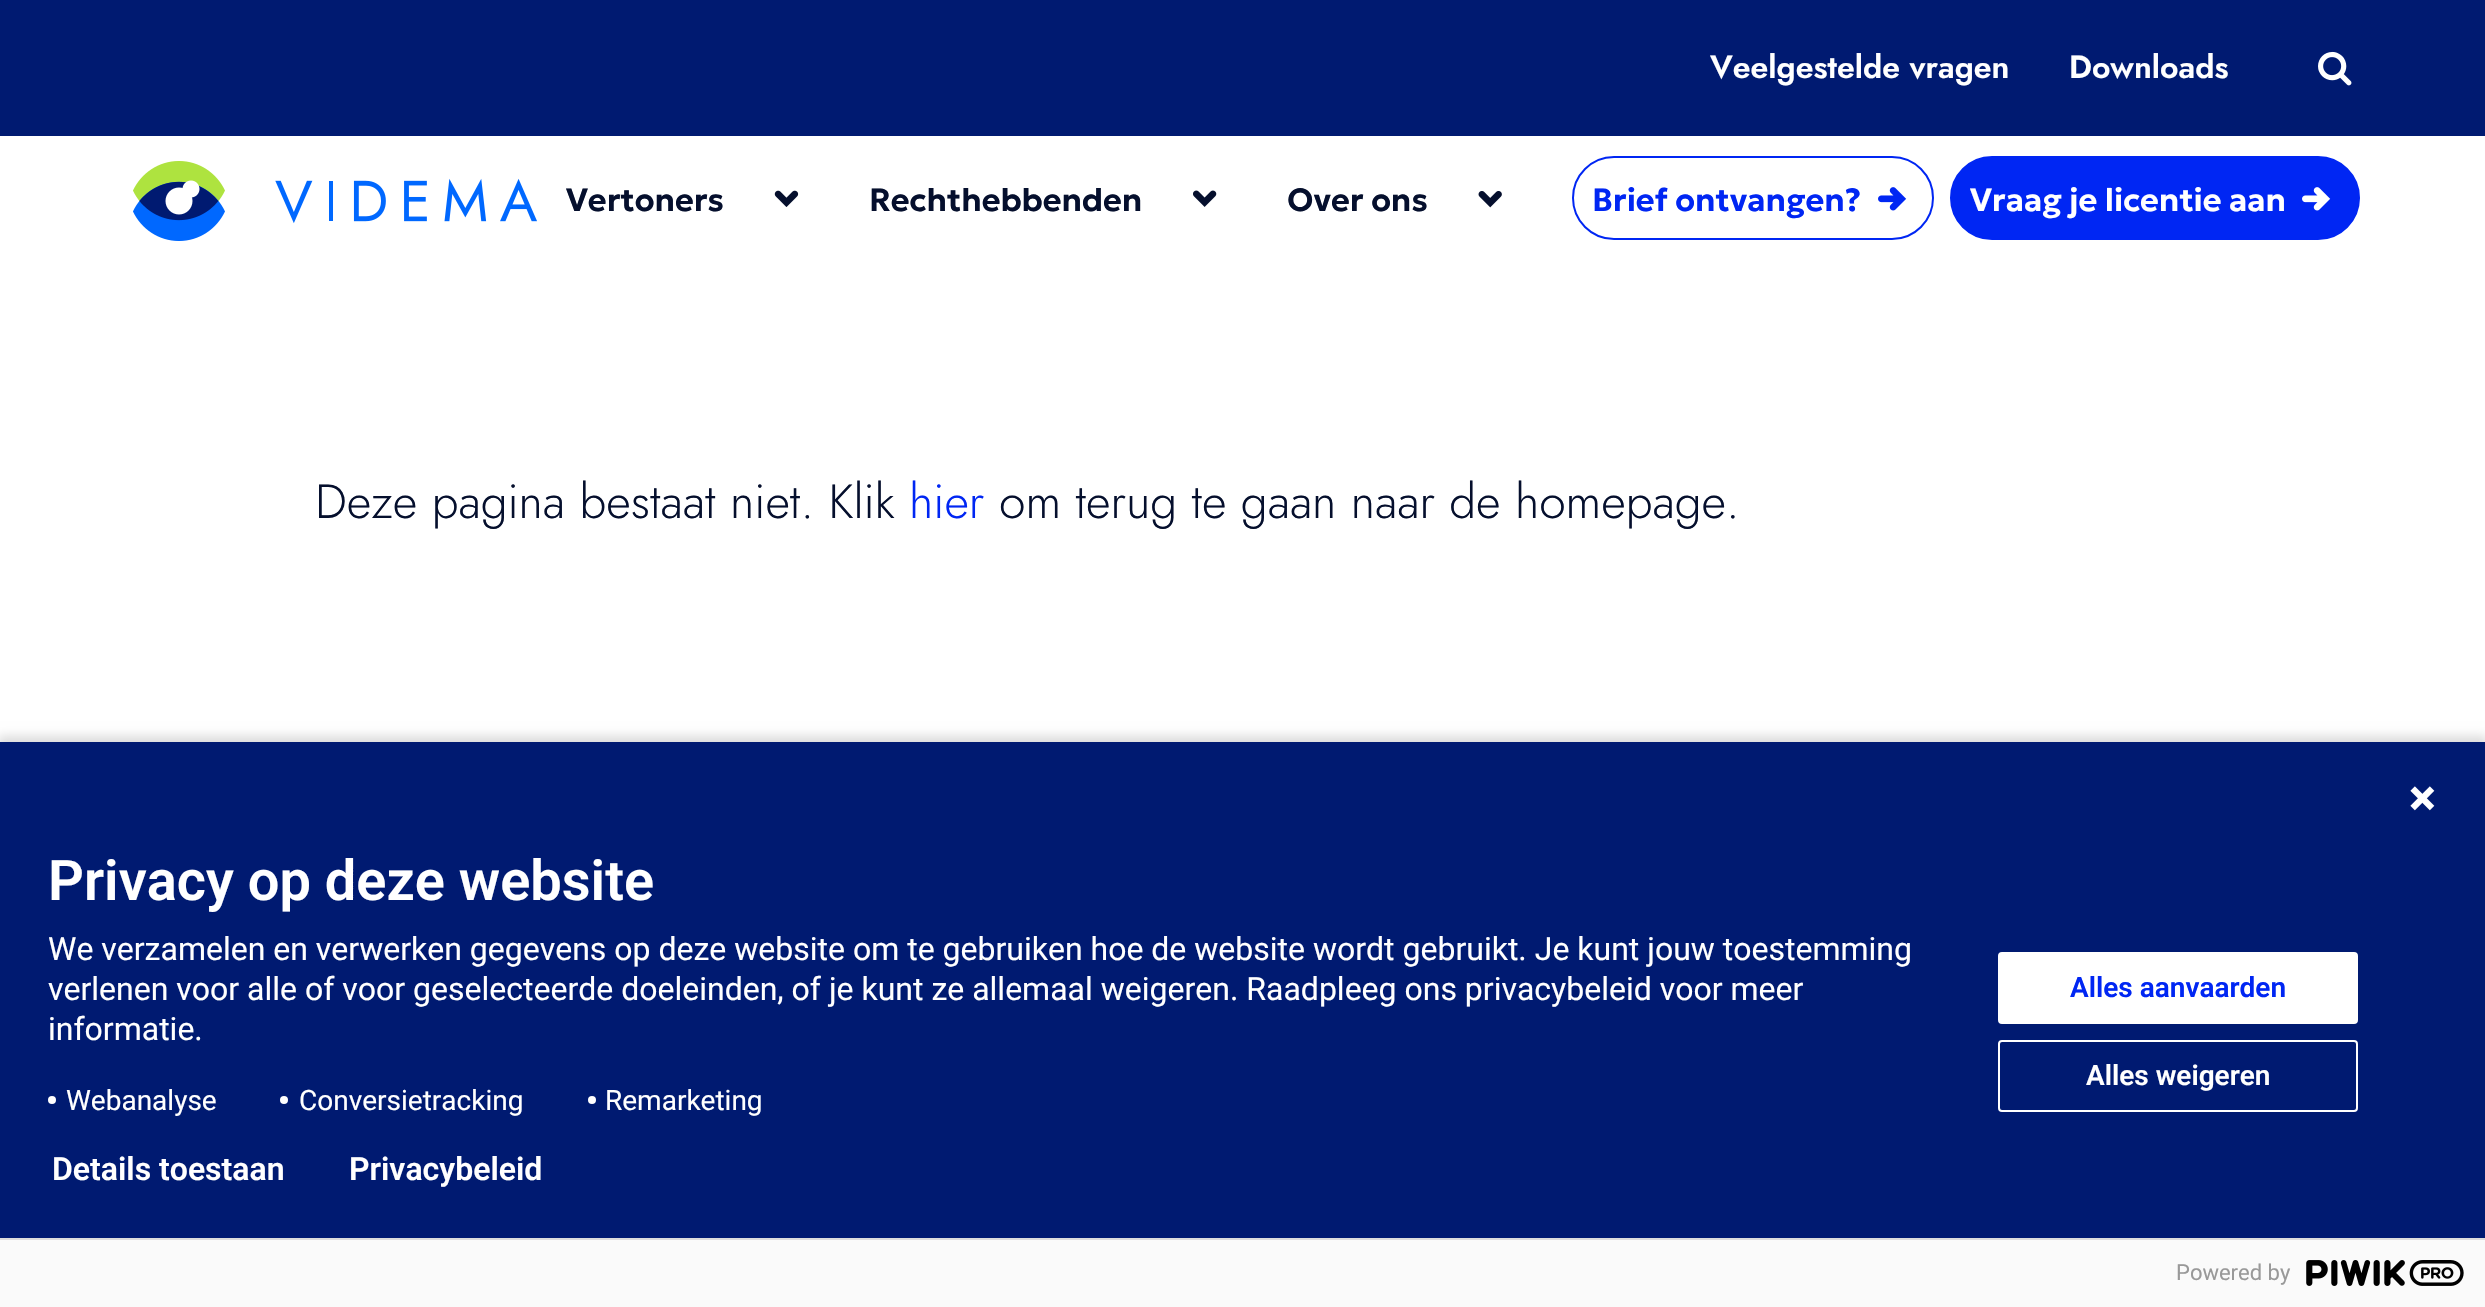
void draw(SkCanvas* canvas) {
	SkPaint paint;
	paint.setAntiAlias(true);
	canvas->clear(0xffffffff);
	paint.setColor(0xff001a71);
	canvas->drawRect(SkRect::MakeXYWH(0, 0, 2485, 136), paint);
	SkFont f1(fontMgr->matchFamilyStyle("Jost", SkFontStyle(600, SkFontStyle::kNormal_Width, SkFontStyle::kUpright_Slant)), 32);
	f1.setSubpixel(true);
	paint.setColor(0xffffffff);
	canvas->drawString("Veelgestelde vragen", 1710, 78, f1, paint);
	canvas->drawString("Downloads", 2069, 78, f1, paint);
	canvas->drawImageRect(SkImages::DeferredFromEncodedData(SkData::MakeFromFileName("img1.png")), SkRect::MakeXYWH(2318, 51, 34, 35), SkSamplingOptions());
	canvas->drawImageRect(SkImages::DeferredFromEncodedData(SkData::MakeFromFileName("img2.png")), SkRect::MakeXYWH(133, 161, 404, 80), SkSamplingOptions());
	SkFont f2(fontMgr->matchFamilyStyle("Geologica", SkFontStyle(600, SkFontStyle::kNormal_Width, SkFontStyle::kUpright_Slant)), 32);
	f2.setSubpixel(true);
	paint.setColor(0xff050f2d);
	canvas->drawString("Vertoners", 566, 211, f2, paint);
	canvas->drawImageRect(SkImages::DeferredFromEncodedData(SkData::MakeFromFileName("img3.png")), SkRect::MakeXYWH(774, 190, 25, 17), SkSamplingOptions());
	canvas->drawString("Rechthebbenden", 869, 211, f2, paint);
	canvas->drawImageRect(SkImages::DeferredFromEncodedData(SkData::MakeFromFileName("img4.png")), SkRect::MakeXYWH(1193, 190, 24, 17), SkSamplingOptions());
	canvas->drawString("Over ons", 1287, 211, f2, paint);
	canvas->drawImageRect(SkImages::DeferredFromEncodedData(SkData::MakeFromFileName("img5.png")), SkRect::MakeXYWH(1478, 191, 24, 17), SkSamplingOptions());
	paint.setStroke(true);
	paint.setStrokeWidth(2);
	paint.setColor(0xff0026f3);
	canvas->drawRoundRect(SkRect::MakeXYWH(1573, 157, 360, 82), 41, 41, paint);
	paint.setStroke(false);
	canvas->drawString("Brief ontvangen?", 1592, 211, f2, paint);
	canvas->drawImageRect(SkImages::DeferredFromEncodedData(SkData::MakeFromFileName("img6.png")), SkRect::MakeXYWH(1878, 187, 29, 24), SkSamplingOptions());
	canvas->drawRoundRect(SkRect::MakeXYWH(1951, 157, 408, 82), 41, 41, paint);
	paint.setStroke(true);
	canvas->drawRoundRect(SkRect::MakeXYWH(1951, 157, 408, 82), 41, 41, paint);
	paint.setStroke(false);
	paint.setColor(0xffffffff);
	canvas->drawString("Vraag je licentie aan", 1970, 211, f2, paint);
	canvas->drawImageRect(SkImages::DeferredFromEncodedData(SkData::MakeFromFileName("img7.png")), SkRect::MakeXYWH(2302, 187, 29, 24), SkSamplingOptions());
	SkFont f3(fontMgr->matchFamilyStyle("Jost", SkFontStyle(300, SkFontStyle::kNormal_Width, SkFontStyle::kUpright_Slant)), 48);
	f3.setSubpixel(true);
	paint.setColor(0xff050f2d);
	canvas->drawString("Deze pagina bestaat niet. Klik", 315, 518, f3, paint);
	paint.setColor(0xff0026f3);
	canvas->drawString("hier", 909, 518, f3, paint);
	paint.setColor(0xff050f2d);
	canvas->drawString("om terug te gaan naar de homepage.", 999, 518, f3, paint);
	paint.setColor(0x24000000);
	paint.setMaskFilter(SkMaskFilter::MakeBlur(kNormal_SkBlurStyle, 5));
	canvas->drawRect(SkRect::MakeXYWH(-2, 736, 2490, 570), paint);
	paint.setMaskFilter(nullptr);
	paint.setColor(0xff001a71);
	canvas->drawRect(SkRect::MakeXYWH(0, 742, 2485, 496), paint);
	canvas->drawImageRect(SkImages::DeferredFromEncodedData(SkData::MakeFromFileName("img8.png")), SkRect::MakeXYWH(2410, 786, 25, 25), SkSamplingOptions());
	SkFont f4(fontMgr->matchFamilyStyle("Roboto", SkFontStyle(600, SkFontStyle::kNormal_Width, SkFontStyle::kUpright_Slant)), 56);
	f4.setSubpixel(true);
	paint.setColor(0xffffffff);
	canvas->drawString("Privacy op deze website", 48, 900, f4, paint);
	SkFont f5(fontMgr->matchFamilyStyle("Roboto", SkFontStyle::Normal()), 32);
	f5.setSubpixel(true);
	canvas->drawString("We verzamelen en verwerken gegevens op deze website om te gebruiken hoe de website wordt gebruikt. Je kunt jouw toestemming", 48, 960, f5, paint);
	canvas->drawString("verlenen voor alle of voor geselecteerde doeleinden, of je kunt ze allemaal weigeren. Raadpleeg ons privacybeleid voor meer", 48, 1000, f5, paint);
	canvas->drawString("informatie.", 48, 1040, f5, paint);
	canvas->drawCircle(52, 1100, 4, paint);
	SkFont f6(fontMgr->matchFamilyStyle("Roboto", SkFontStyle::Normal()), 28);
	f6.setSubpixel(true);
	canvas->drawString("Webanalyse", 66, 1110, f6, paint);
	canvas->drawCircle(284, 1100, 4, paint);
	canvas->drawString("Conversietracking", 299, 1110, f6, paint);
	canvas->drawCircle(592, 1100, 4, paint);
	canvas->drawString("Remarketing", 605, 1110, f6, paint);
	canvas->drawRoundRect(SkRect::MakeXYWH(1999, 953, 358, 70), 3, 3, paint);
	paint.setStroke(true);
	canvas->drawRoundRect(SkRect::MakeXYWH(1999, 953, 358, 70), 3, 3, paint);
	SkFont f7(fontMgr->matchFamilyStyle("Roboto", SkFontStyle(600, SkFontStyle::kNormal_Width, SkFontStyle::kUpright_Slant)), 28);
	f7.setSubpixel(true);
	paint.setStroke(false);
	paint.setColor(0xff0026f3);
	canvas->drawString("Alles aanvaarden", 2070, 997, f7, paint);
	paint.setStroke(true);
	paint.setColor(0xffffffff);
	canvas->drawRoundRect(SkRect::MakeXYWH(1999, 1041, 358, 70), 3, 3, paint);
	paint.setStroke(false);
	canvas->drawString("Alles weigeren", 2086, 1085, f7, paint);
	SkFont f8(fontMgr->matchFamilyStyle("Roboto", SkFontStyle(600, SkFontStyle::kNormal_Width, SkFontStyle::kUpright_Slant)), 32);
	f8.setSubpixel(true);
	canvas->drawString("Details toestaan", 52, 1180, f8, paint);
	canvas->drawString("Privacybeleid", 349, 1180, f8, paint);
	paint.setColor(0xfffafafa);
	canvas->drawRect(SkRect::MakeXYWH(0, 1240, 2485, 67), paint);
	paint.setColor(0xffdddddd);
	canvas->drawRect(SkRect::MakeXYWH(0, 1238, 2485, 2), paint);
	SkFont f9(fontMgr->matchFamilyStyle("Roboto", SkFontStyle::Normal()), 22);
	f9.setSubpixel(true);
	paint.setColor(0xff999999);
	canvas->drawString("Powered by", 2176, 1280, f9, paint);
	canvas->drawImageRect(SkImages::DeferredFromEncodedData(SkData::MakeFromFileName("img9.png")), SkRect::MakeXYWH(2306, 1260, 158, 26), SkSamplingOptions());
}
